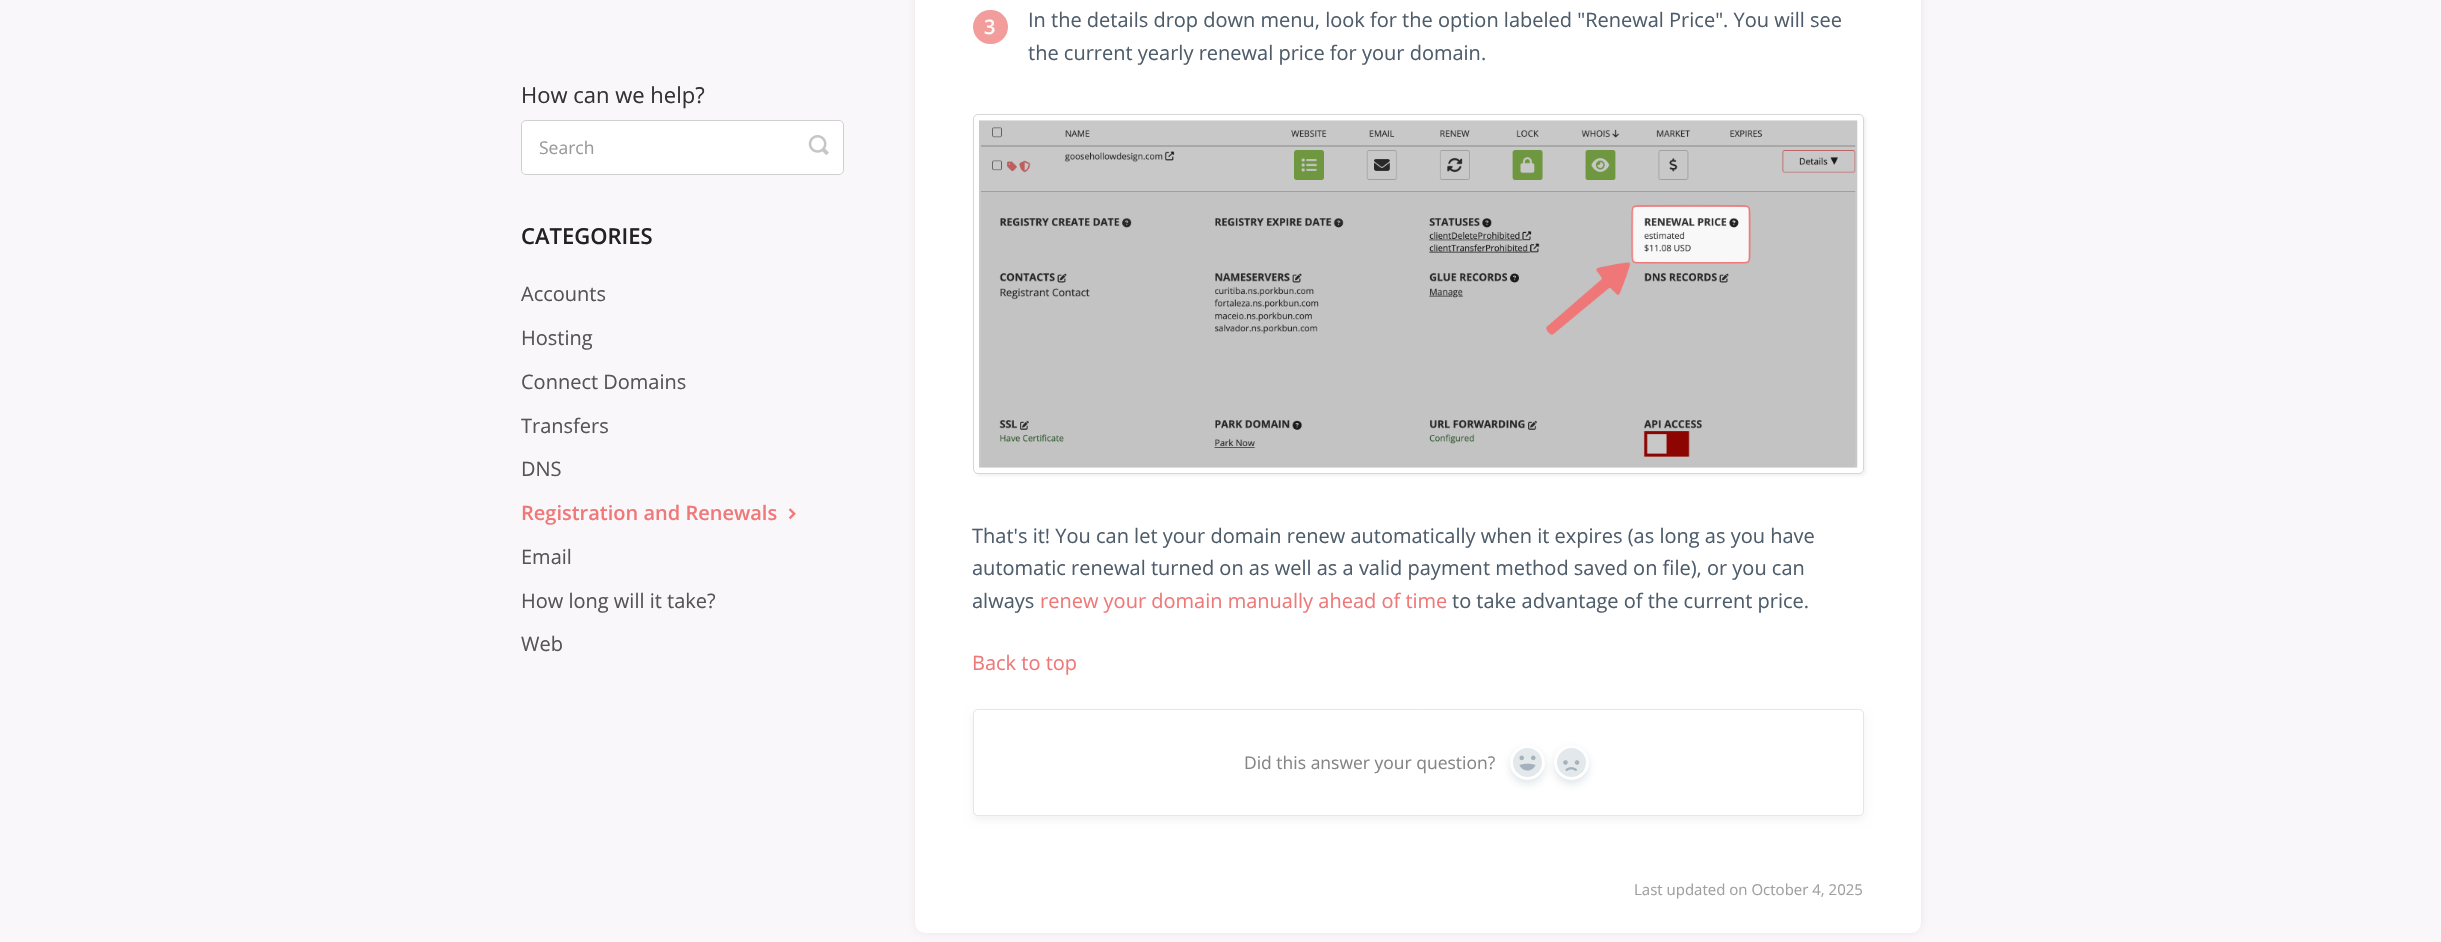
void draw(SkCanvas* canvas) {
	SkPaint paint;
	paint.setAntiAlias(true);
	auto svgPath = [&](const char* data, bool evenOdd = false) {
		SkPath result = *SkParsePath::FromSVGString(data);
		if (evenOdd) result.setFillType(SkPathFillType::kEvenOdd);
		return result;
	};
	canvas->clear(0xfffaf7fa);
	SkFont f1(fontMgr->matchFamilyStyle("Open Sans", SkFontStyle::Normal()), 22);
	f1.setSubpixel(true);
	paint.setColor(0xff333333);
	canvas->drawString("How can we help?", 521, 103, f1, paint);
	paint.setColor(0xffffffff);
	canvas->drawRoundRect(SkRect::MakeXYWH(521.5, 120.5, 322, 54), 4.5, 4.5, paint);
	paint.setStroke(true);
	paint.setStrokeWidth(1);
	paint.setColor(0xffd0d0d0);
	canvas->drawRoundRect(SkRect::MakeXYWH(521.5, 120.5, 322, 54), 4.5, 4.5, paint);
	SkFont f2(fontMgr->matchFamilyStyle("Open Sans", SkFontStyle::Normal()), 17.5);
	f2.setSubpixel(true);
	paint.setStroke(false);
	paint.setColor(0xff999999);
	canvas->drawString("Search", 539, 154, f2, paint);
	canvas->drawImageRect(SkImages::DeferredFromEncodedData(SkData::MakeFromFileName("img1.png")), SkRect::MakeXYWH(808, 135, 21, 20), SkSamplingOptions());
	SkFont f3(fontMgr->matchFamilyStyle("Open Sans", SkFontStyle(600, SkFontStyle::kNormal_Width, SkFontStyle::kUpright_Slant)), 22);
	f3.setSubpixel(true);
	paint.setColor(0xff222222);
	canvas->drawString("CATEGORIES", 521, 244, f3, paint);
	SkFont f4(fontMgr->matchFamilyStyle("Open Sans", SkFontStyle::Normal()), 20);
	f4.setSubpixel(true);
	paint.setColor(0xff555555);
	canvas->drawString("Accounts", 521, 301, f4, paint);
	canvas->drawString("Hosting", 521, 345, f4, paint);
	canvas->drawString("Connect Domains", 521, 389, f4, paint);
	canvas->drawString("Transfers", 521, 433, f4, paint);
	canvas->drawString("DNS", 521, 476, f4, paint);
	SkFont f5(fontMgr->matchFamilyStyle("Open Sans", SkFontStyle(600, SkFontStyle::kNormal_Width, SkFontStyle::kUpright_Slant)), 20);
	f5.setSubpixel(true);
	paint.setColor(0xffef7878);
	canvas->drawString("Registration and Renewals", 521, 520, f5, paint);
	canvas->drawImageRect(SkImages::DeferredFromEncodedData(SkData::MakeFromFileName("img2.png")), SkRect::MakeXYWH(788, 508, 8, 12), SkSamplingOptions());
	paint.setColor(0xff555555);
	canvas->drawString("Email", 521, 564, f4, paint);
	canvas->drawString("How long will it take?", 521, 608, f4, paint);
	canvas->drawString("Web", 521, 651, f4, paint);
	paint.setColor(0x26967878);
	paint.setMaskFilter(SkMaskFilter::MakeBlur(kNormal_SkBlurStyle, 4));
	canvas->drawRoundRect(SkRect::MakeXYWH(915, -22, 1006, 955), 10, 10, paint);
	paint.setMaskFilter(nullptr);
	paint.setColor(0xffffffff);
	canvas->drawRoundRect(SkRect::MakeXYWH(915, -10, 1006, 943), 10, 10, paint);
	paint.setColor(0xfff39c9c);
	canvas->drawRoundRect(SkRect::MakeXYWH(973, 10, 35, 34), 17, 17, paint);
	paint.setColor(0xfffafafa);
	canvas->drawString("3", 984, 34, f5, paint);
	paint.setColor(0xff4f5d6b);
	canvas->drawString("In the details drop down menu, look for the option labeled \"Renewal Price\". You will see", 1028, 27, f4, paint);
	canvas->drawString("the current yearly renewal price for your domain.", 1028, 60, f4, paint);
	canvas->save();
	canvas->clipPath(svgPath("M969 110H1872V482H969ZM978 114H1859C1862 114 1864 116 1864 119V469C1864 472 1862 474 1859 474H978C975 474 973 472 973 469V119C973 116 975 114 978 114Z", true), true);
	paint.setColor(0x0d000000);
	paint.setMaskFilter(SkMaskFilter::MakeBlur(kNormal_SkBlurStyle, 1.5));
	canvas->drawRoundRect(SkRect::MakeXYWH(975, 116, 891, 360), 5, 5, paint);
	paint.setMaskFilter(nullptr);
	canvas->restore();
	paint.setStroke(true);
	paint.setColor(0xffd6d6d6);
	canvas->drawRoundRect(SkRect::MakeXYWH(973.5, 114.5, 890, 359), 4.5, 4.5, paint);
	canvas->drawImageRect(SkImages::DeferredFromEncodedData(SkData::MakeFromFileName("img3.png")), SkRect::MakeXYWH(979, 120, 879, 348), SkSamplingOptions());
	paint.setStroke(false);
	paint.setColor(0xff4f5d6b);
	canvas->drawString("That's it! You can let your domain renew automatically when it expires (as long as you have", 972, 543, f4, paint);
	canvas->drawString("automatic renewal turned on as well as a valid payment method saved on file), or you can", 972, 575, f4, paint);
	canvas->drawString("always", 972, 608, f4, paint);
	paint.setColor(0xffef7878);
	canvas->drawString("renew your domain manually ahead of time", 1040, 608, f4, paint);
	paint.setColor(0xff4f5d6b);
	canvas->drawString("to take advantage of the current price.", 1452, 608, f4, paint);
	paint.setColor(0xffef7878);
	canvas->drawString("Back to top", 972, 670, f4, paint);
	paint.setColor(0x0d000000);
	paint.setMaskFilter(SkMaskFilter::MakeBlur(kNormal_SkBlurStyle, 4));
	canvas->drawRoundRect(SkRect::MakeXYWH(973, 713, 891, 107), 5, 5, paint);
	paint.setMaskFilter(nullptr);
	paint.setColor(0xffffffff);
	canvas->drawRoundRect(SkRect::MakeXYWH(973.5, 709.5, 890, 106), 4.5, 4.5, paint);
	paint.setStroke(true);
	paint.setColor(0xffe9e5e5);
	canvas->drawRoundRect(SkRect::MakeXYWH(973.5, 709.5, 890, 106), 4.5, 4.5, paint);
	paint.setStroke(false);
	paint.setColor(0xff858585);
	canvas->drawString("Did this answer your question?", 1244, 769, f2, paint);
	paint.setColor(0x80c1cbd4);
	paint.setMaskFilter(SkMaskFilter::MakeBlur(kNormal_SkBlurStyle, 4));
	canvas->drawRoundRect(SkRect::MakeXYWH(1510, 749, 35, 35), 17.5, 17.5, paint);
	paint.setMaskFilter(nullptr);
	paint.setColor(0xffe3e8eb);
	canvas->drawCircle(1527.5, 762.5, 16, paint);
	paint.setStroke(true);
	paint.setStrokeWidth(3);
	paint.setColor(0xffffffff);
	canvas->drawCircle(1527.5, 762.5, 16, paint);
	canvas->drawImageRect(SkImages::DeferredFromEncodedData(SkData::MakeFromFileName("img4.png")), SkRect::MakeXYWH(1519, 755, 17, 16), SkSamplingOptions());
	paint.setStroke(false);
	paint.setColor(0x80c1cbd4);
	paint.setMaskFilter(SkMaskFilter::MakeBlur(kNormal_SkBlurStyle, 4));
	canvas->drawRoundRect(SkRect::MakeXYWH(1554, 749, 35, 35), 17.5, 17.5, paint);
	paint.setMaskFilter(nullptr);
	paint.setColor(0xffe3e8eb);
	canvas->drawCircle(1571.5, 762.5, 16, paint);
	paint.setStroke(true);
	paint.setColor(0xffffffff);
	canvas->drawCircle(1571.5, 762.5, 16, paint);
	canvas->drawImageRect(SkImages::DeferredFromEncodedData(SkData::MakeFromFileName("img5.png")), SkRect::MakeXYWH(1563, 760, 17, 11), SkSamplingOptions());
	SkFont f6(fontMgr->matchFamilyStyle("Open Sans", SkFontStyle::Normal()), 15);
	f6.setSubpixel(true);
	paint.setStroke(false);
	paint.setColor(0xffa0a0a0);
	canvas->drawString("Last updated on October 4, 2025", 1634, 895, f6, paint);
}
